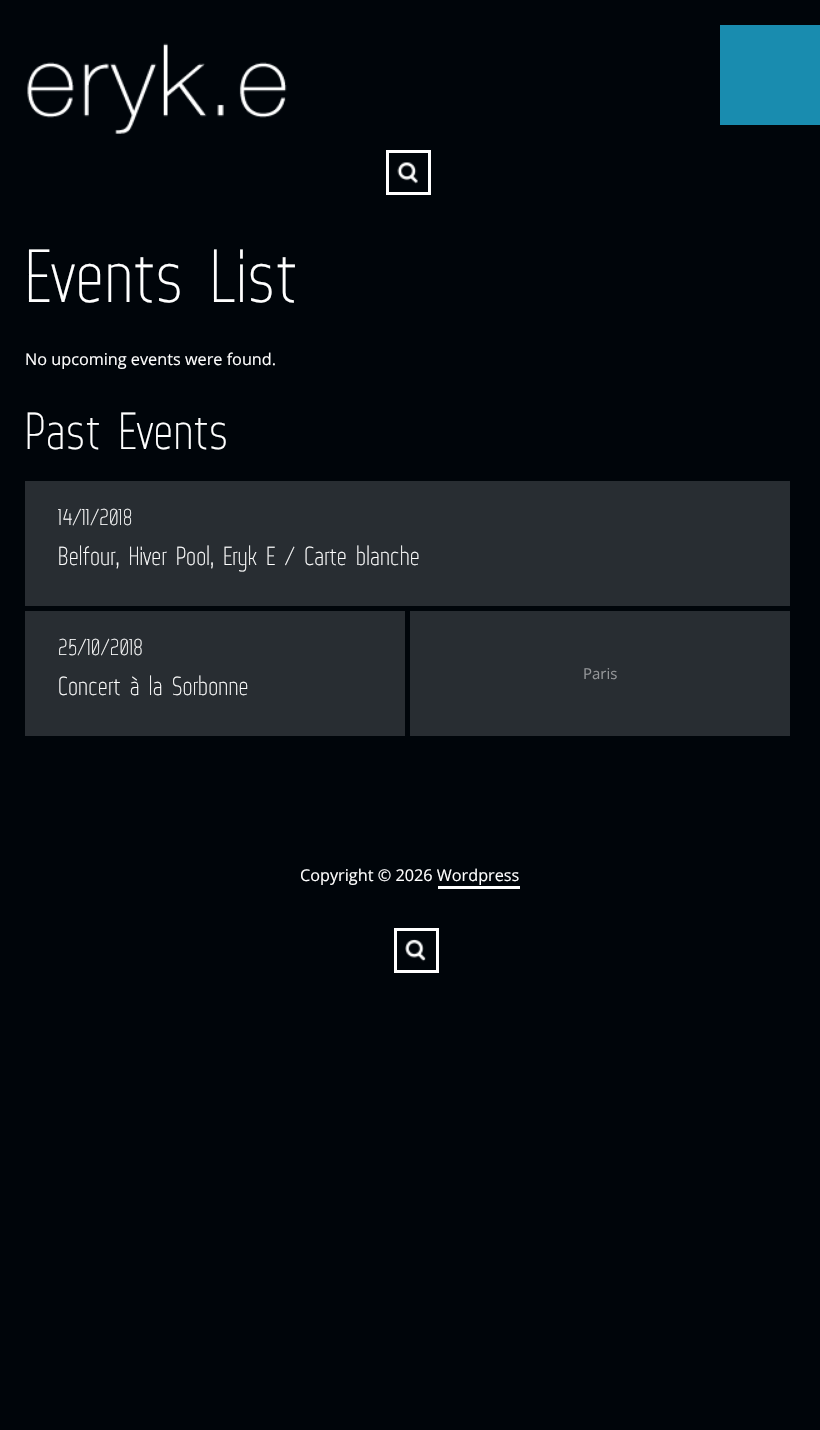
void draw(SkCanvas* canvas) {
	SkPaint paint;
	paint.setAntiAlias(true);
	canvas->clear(0xff00050a);
	canvas->drawImageRect(SkImages::DeferredFromEncodedData(SkData::MakeFromFileName("img1.png")), SkRect::MakeXYWH(27, 43, 260, 91), SkSamplingOptions());
	paint.setColor(0xff198caf);
	canvas->drawRect(SkRect::MakeXYWH(720, 25, 100, 100), paint);
	canvas->drawImageRect(SkImages::DeferredFromEncodedData(SkData::MakeFromFileName("img2.png")), SkRect::MakeXYWH(397, 162, 21, 22), SkSamplingOptions());
	paint.setStroke(true);
	paint.setStrokeWidth(3);
	paint.setColor(0xffffffff);
	canvas->drawRect(SkRect::MakeXYWH(387.5, 151.5, 42, 42), paint);
	SkFont f1(fontMgr->matchFamilyStyle("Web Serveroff", SkFontStyle::Normal()), 75);
	f1.setSubpixel(true);
	paint.setStroke(false);
	canvas->drawString("Events List", 25, 302, f1, paint);
	SkFont f2(fontMgr->matchFamilyStyle("Open Sans", SkFontStyle::Normal()), 16.25);
	f2.setSubpixel(true);
	canvas->drawString("No upcoming events were found.", 25, 365, f2, paint);
	SkFont f3(fontMgr->matchFamilyStyle("Web Serveroff", SkFontStyle::Normal()), 52);
	f3.setSubpixel(true);
	canvas->drawString("Past Events", 25, 449, f3, paint);
	paint.setColor(0xff282d32);
	canvas->drawRect(SkRect::MakeXYWH(25, 481, 765, 125), paint);
	SkFont f4(fontMgr->matchFamilyStyle("Web Serveroff", SkFontStyle::Normal()), 23);
	f4.setSubpixel(true);
	paint.setColor(0xffffffff);
	canvas->drawString("14/11/2018", 58, 525, f4, paint);
	SkFont f5(fontMgr->matchFamilyStyle("Web Serveroff", SkFontStyle::Normal()), 26);
	f5.setSubpixel(true);
	canvas->drawString("Belfour, Hiver Pool, Eryk E / Carte blanche", 58, 565, f5, paint);
	paint.setColor(0xff282d32);
	canvas->drawRect(SkRect::MakeXYWH(25, 611, 380, 125), paint);
	paint.setColor(0xffffffff);
	canvas->drawString("25/10/2018", 58, 655, f4, paint);
	canvas->drawString("Concert à la Sorbonne", 58, 695, f5, paint);
	paint.setColor(0xff282d32);
	canvas->drawRect(SkRect::MakeXYWH(410, 611, 380, 125), paint);
	SkFont f6(fontMgr->matchFamilyStyle("Open Sans", SkFontStyle::Normal()), 15);
	f6.setSubpixel(true);
	paint.setColor(0xff949699);
	canvas->drawString("Paris", 583, 679, f6, paint);
	paint.setColor(0xffffffff);
	canvas->drawString("Copyright © 2026 Wordpress", 300, 881, f2, paint);
	canvas->drawRect(SkRect::MakeXYWH(438, 886, 82, 3), paint);
	canvas->drawImageRect(SkImages::DeferredFromEncodedData(SkData::MakeFromFileName("img3.png")), SkRect::MakeXYWH(405, 939, 21, 23), SkSamplingOptions());
	paint.setStroke(true);
	canvas->drawRect(SkRect::MakeXYWH(395.5, 929.5, 42, 42), paint);
}
